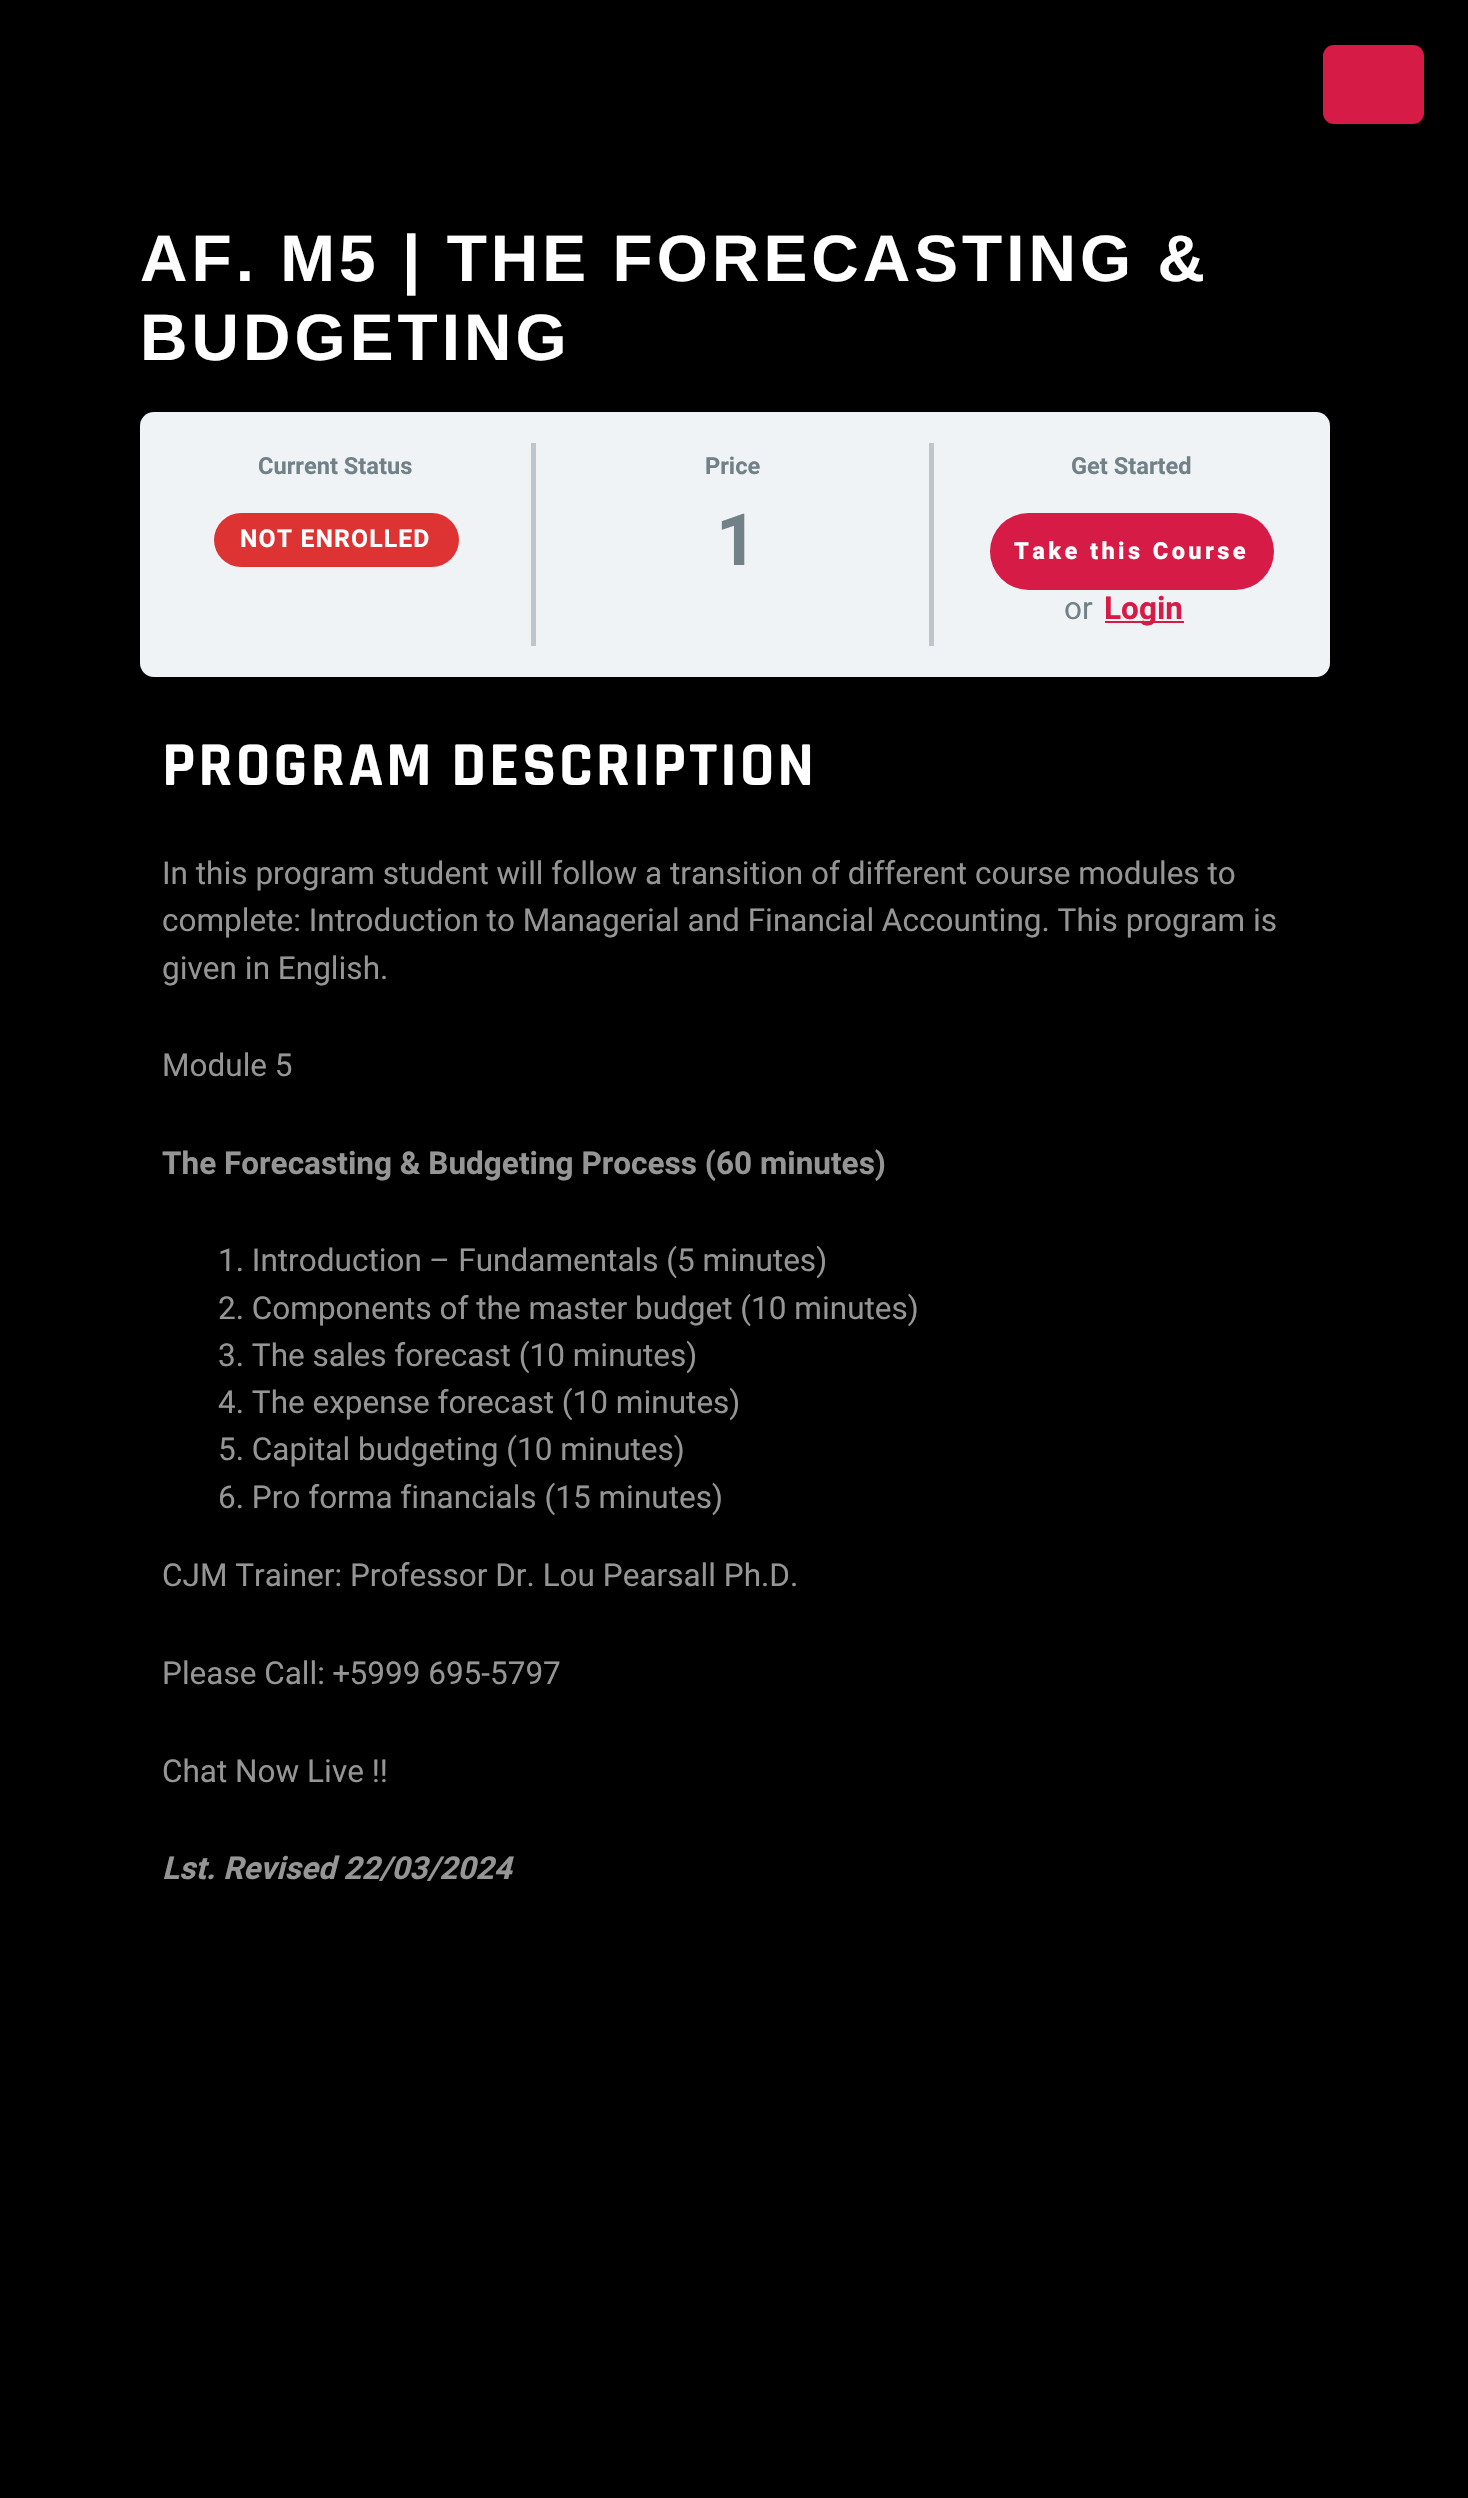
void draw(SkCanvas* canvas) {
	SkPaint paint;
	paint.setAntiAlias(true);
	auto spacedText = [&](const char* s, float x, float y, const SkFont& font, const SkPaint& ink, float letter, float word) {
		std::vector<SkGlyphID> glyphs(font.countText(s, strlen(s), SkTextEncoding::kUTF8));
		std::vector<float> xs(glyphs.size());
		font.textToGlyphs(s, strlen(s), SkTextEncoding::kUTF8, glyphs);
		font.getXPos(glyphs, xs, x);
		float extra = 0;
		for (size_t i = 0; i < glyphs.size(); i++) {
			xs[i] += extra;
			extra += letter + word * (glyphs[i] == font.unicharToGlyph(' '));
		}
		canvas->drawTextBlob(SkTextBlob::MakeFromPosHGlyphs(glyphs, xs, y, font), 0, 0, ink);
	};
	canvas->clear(0xff000000);
	paint.setColor(0xffd71b47);
	canvas->drawRoundRect(SkRect::MakeXYWH(1323, 45, 101, 79), 11, 11, paint);
	SkFont f1(fontMgr->matchFamilyStyle("Liberation Sans", SkFontStyle::Bold()), 65.7);
	f1.setSubpixel(true);
	paint.setColor(0xffffffff);
	spacedText("AF. M5 | THE FORECASTING &", 140, 281, f1, paint, 4.05, 0);
	spacedText("BUDGETING", 140, 360, f1, paint, 4.05, 0);
	paint.setColor(0xfff0f3f6);
	canvas->drawRoundRect(SkRect::MakeXYWH(140, 412, 1190, 265), 14, 14, paint);
	paint.setColor(0xffbec5cb);
	canvas->drawRect(SkRect::MakeXYWH(531, 443, 5, 203), paint);
	SkFont f2(fontMgr->matchFamilyStyle("Heebo", SkFontStyle::Bold()), 23.6);
	f2.setSubpixel(true);
	paint.setColor(0xff728188);
	canvas->drawString("Current Status", 258, 474, f2, paint);
	paint.setColor(0xffdd3333);
	canvas->drawRoundRect(SkRect::MakeXYWH(214, 513, 245, 54), 27, 27, paint);
	SkFont f3(fontMgr->matchFamilyStyle("Heebo", SkFontStyle::Bold()), 24.75);
	f3.setSubpixel(true);
	paint.setColor(0xffffffff);
	spacedText("NOT ENROLLED", 240, 547, f3, paint, 1.1, 0);
	paint.setColor(0xffbec5cb);
	canvas->drawRect(SkRect::MakeXYWH(929, 443, 5, 203), paint);
	paint.setColor(0xff728188);
	canvas->drawString("Price", 705, 474, f2, paint);
	SkFont f4(fontMgr->matchFamilyStyle("Heebo", SkFontStyle::Bold()), 72);
	f4.setSubpixel(true);
	canvas->drawString("1", 716, 565, f4, paint);
	canvas->drawString("Get Started", 1071, 474, f2, paint);
	paint.setColor(0xffd71b47);
	canvas->drawRoundRect(SkRect::MakeXYWH(990, 513, 284, 77), 38.5, 38.5, paint);
	SkFont f5(fontMgr->matchFamilyStyle("Heebo", SkFontStyle(800, SkFontStyle::kNormal_Width, SkFontStyle::kUpright_Slant)), 23.6);
	f5.setSubpixel(true);
	paint.setColor(0xffffffff);
	spacedText("Take this Course", 1014, 559, f5, paint, 3.4, 0);
	SkFont f6(fontMgr->matchFamilyStyle("Heebo", SkFontStyle::Normal()), 31.5);
	f6.setSubpixel(true);
	paint.setColor(0xff728188);
	canvas->drawString("or", 1064, 619, f6, paint);
	paint.setColor(0xffd71b47);
	canvas->drawRect(SkRect::MakeXYWH(1105, 621, 79, 2), paint);
	SkFont f7(fontMgr->matchFamilyStyle("Heebo", SkFontStyle::Bold()), 31.5);
	f7.setSubpixel(true);
	canvas->drawString("Login", 1104, 619, f7, paint);
	SkFont f8(fontMgr->matchFamilyStyle("Rajdhani", SkFontStyle::Bold()), 63);
	f8.setSubpixel(true);
	paint.setColor(0xffffffff);
	spacedText("PROGRAM DESCRIPTION", 162, 785, f8, paint, 2.9, 0);
	paint.setColor(0xff959595);
	canvas->drawString("In this program student will follow a transition of different course modules to", 162, 884, f6, paint);
	canvas->drawString("complete: Introduction to Managerial and Financial Accounting. This program is", 162, 931, f6, paint);
	canvas->drawString("given in English.", 162, 979, f6, paint);
	canvas->drawString("Module 5", 162, 1076, f6, paint);
	canvas->drawString("The Forecasting & Budgeting Process (60 minutes)", 162, 1174, f7, paint);
	canvas->drawString("1. Introduction – Fundamentals (5 minutes)", 218, 1271, f6, paint);
	canvas->drawString("2. Components of the master budget (10 minutes)", 218, 1319, f6, paint);
	canvas->drawString("3. The sales forecast (10 minutes)", 218, 1366, f6, paint);
	canvas->drawString("4. The expense forecast (10 minutes)", 218, 1413, f6, paint);
	canvas->drawString("5. Capital budgeting (10 minutes)", 218, 1460, f6, paint);
	canvas->drawString("6. Pro forma financials (15 minutes)", 218, 1508, f6, paint);
	canvas->drawString("CJM Trainer: Professor Dr. Lou Pearsall Ph.D.", 162, 1586, f6, paint);
	canvas->drawString("Please Call: +5999 695-5797", 162, 1684, f6, paint);
	canvas->drawString("Chat Now Live !!", 162, 1782, f6, paint);
	SkFont f9(fontMgr->matchFamilyStyle("Heebo", SkFontStyle::BoldItalic()), 31.5);
	f9.setSubpixel(true);
	canvas->drawString("Lst. Revised 22/03/2024", 162, 1879, f9, paint);
}
